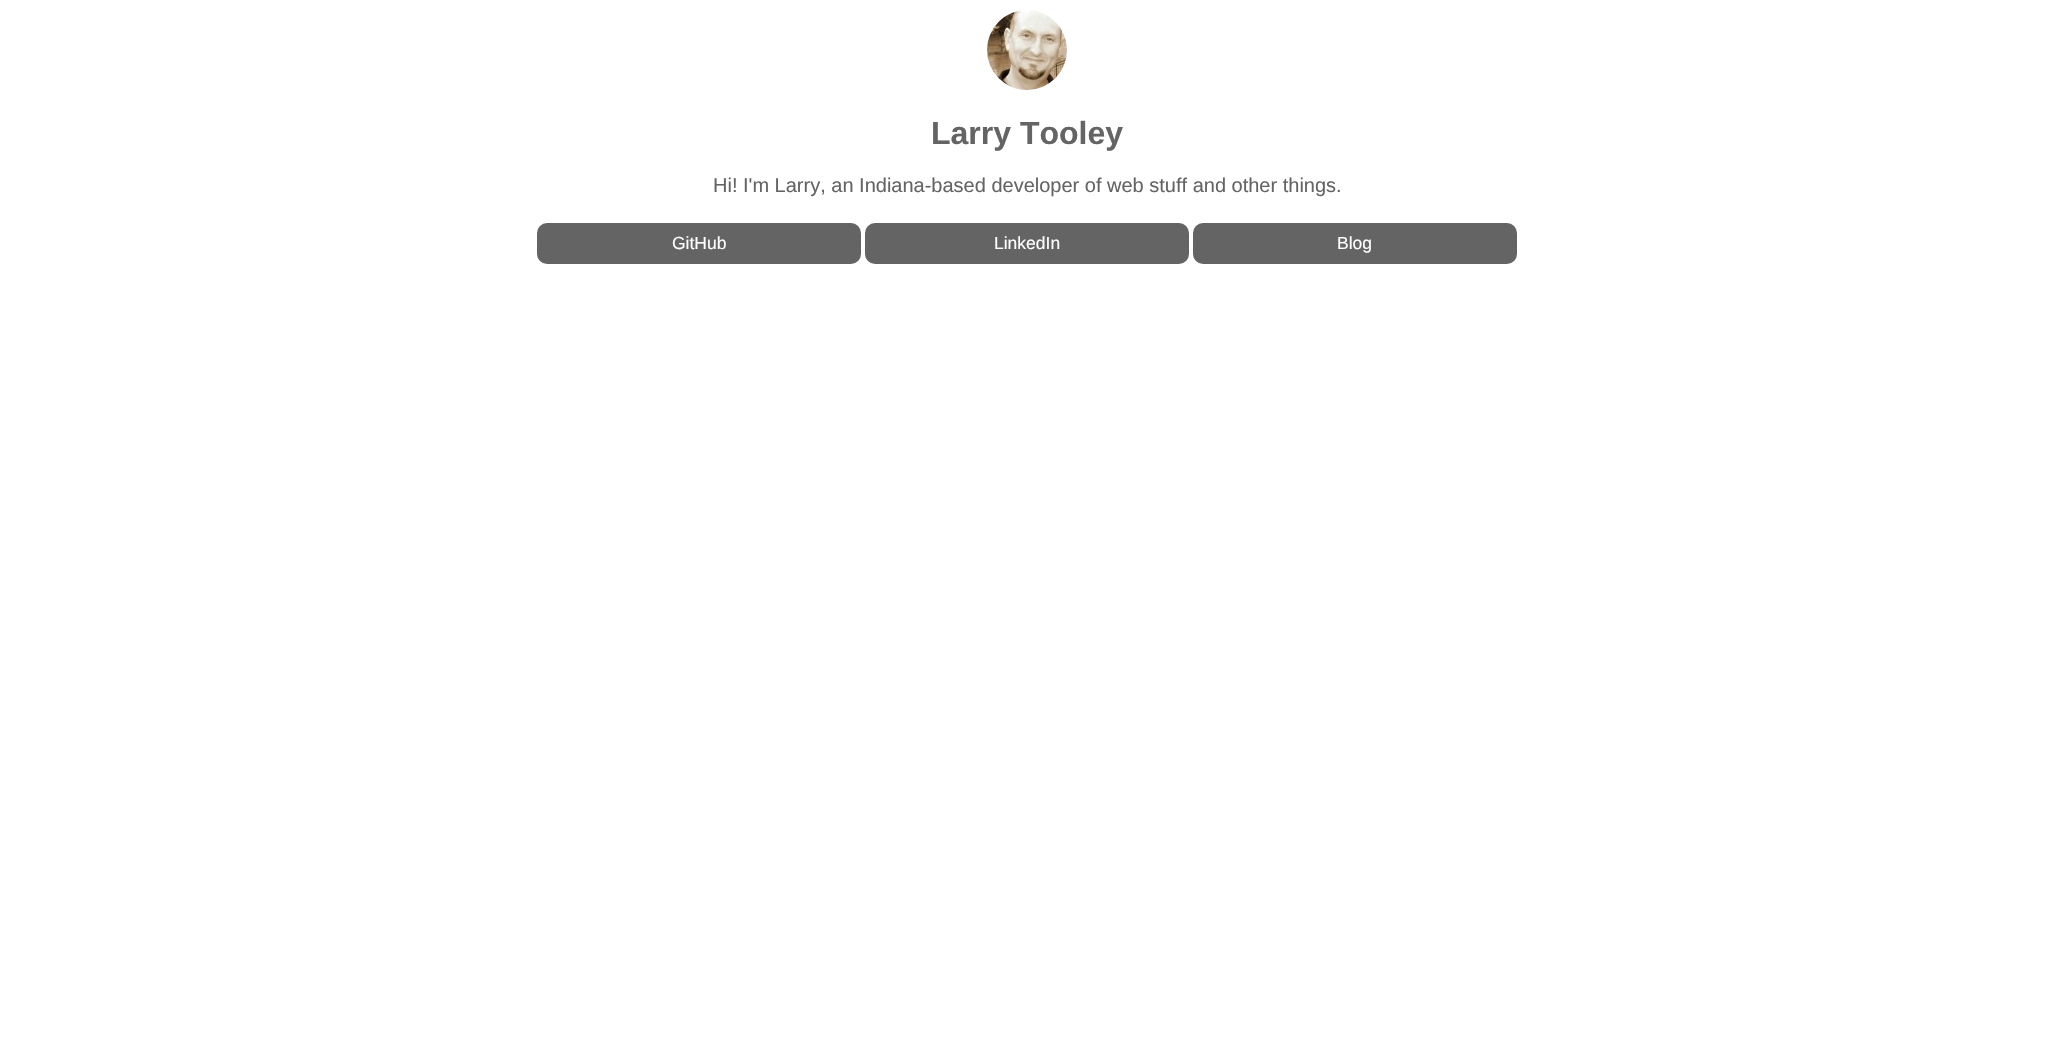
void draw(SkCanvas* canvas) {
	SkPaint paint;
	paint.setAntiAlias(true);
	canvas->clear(0xffffffff);
	canvas->drawImageRect(SkImages::DeferredFromEncodedData(SkData::MakeFromFileName("img1.png")), SkRect::MakeXYWH(987, 10, 80, 80), SkSamplingOptions());
	SkFont f1(fontMgr->matchFamilyStyle("Liberation Sans", SkFontStyle::Bold()), 32);
	f1.setSubpixel(true);
	paint.setColor(0xff646464);
	canvas->drawString("Larry Tooley", 931, 144, f1, paint);
	SkFont f2(fontMgr->matchFamilyStyle("Liberation Sans", SkFontStyle::Normal()), 20);
	f2.setSubpixel(true);
	canvas->drawString("Hi! I'm Larry, an Indiana-based developer of web stuff and other things.", 713, 192, f2, paint);
	canvas->drawRoundRect(SkRect::MakeXYWH(537, 223, 324, 41), 10, 10, paint);
	SkFont f3(fontMgr->matchFamilyStyle("Liberation Sans", SkFontStyle::Normal()), 17.5);
	f3.setSubpixel(true);
	paint.setColor(0xffffffff);
	canvas->drawString("GitHub", 672, 249, f3, paint);
	paint.setColor(0xff646464);
	canvas->drawRoundRect(SkRect::MakeXYWH(865, 223, 324, 41), 10, 10, paint);
	paint.setColor(0xffffffff);
	canvas->drawString("LinkedIn", 994, 249, f3, paint);
	paint.setColor(0xff646464);
	canvas->drawRoundRect(SkRect::MakeXYWH(1193, 223, 324, 41), 10, 10, paint);
	paint.setColor(0xffffffff);
	canvas->drawString("Blog", 1337, 249, f3, paint);
}
